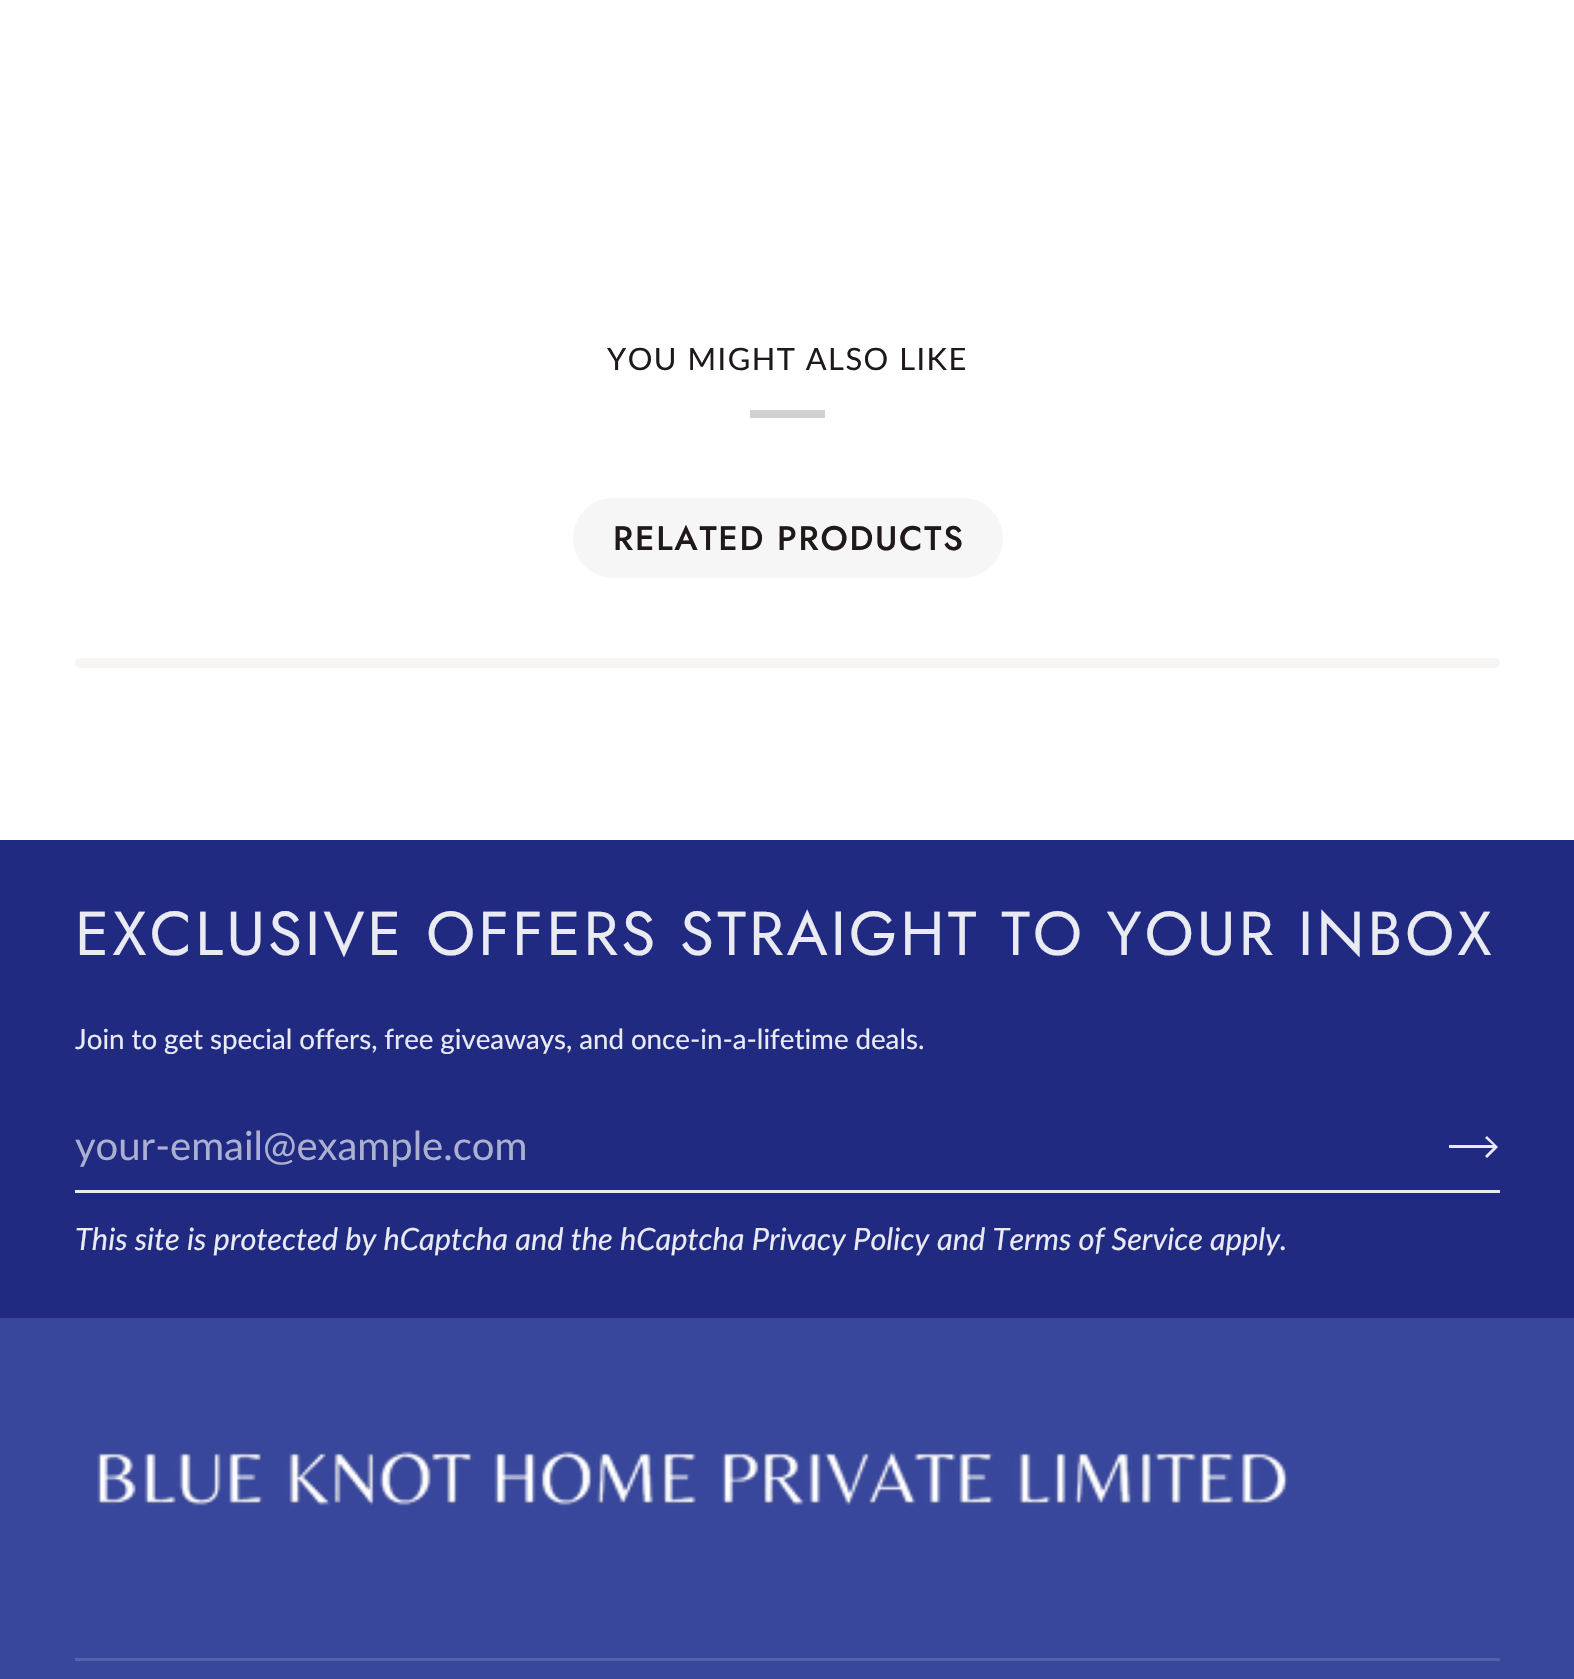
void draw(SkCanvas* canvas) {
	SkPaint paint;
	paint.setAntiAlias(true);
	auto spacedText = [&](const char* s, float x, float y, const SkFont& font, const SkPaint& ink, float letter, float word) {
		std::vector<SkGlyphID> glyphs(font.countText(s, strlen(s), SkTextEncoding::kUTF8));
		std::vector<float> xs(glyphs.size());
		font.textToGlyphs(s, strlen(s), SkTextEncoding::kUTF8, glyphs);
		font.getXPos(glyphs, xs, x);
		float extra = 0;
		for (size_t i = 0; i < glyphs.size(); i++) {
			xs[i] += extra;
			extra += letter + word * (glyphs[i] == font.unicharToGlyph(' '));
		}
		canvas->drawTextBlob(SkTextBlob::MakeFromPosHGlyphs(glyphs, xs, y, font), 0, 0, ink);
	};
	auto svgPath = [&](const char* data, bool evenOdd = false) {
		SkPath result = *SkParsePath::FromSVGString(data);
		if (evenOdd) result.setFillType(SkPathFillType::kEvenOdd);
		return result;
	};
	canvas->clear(0xffffffff);
	SkFont f1(fontMgr->matchFamilyStyle("Lato", SkFontStyle::Normal()), 30.8);
	f1.setSubpixel(true);
	paint.setColor(0xff1f1919);
	spacedText("YOU MIGHT ALSO LIKE", 607, 370, f1, paint, 1.5, 0);
	paint.setColor(0xffd2d1d1);
	canvas->drawRect(SkRect::MakeXYWH(750, 410, 75, 8), paint);
	paint.setColor(0xfff6f6f6);
	canvas->drawRoundRect(SkRect::MakeXYWH(573, 498, 430, 80), 40, 40, paint);
	SkFont f2(fontMgr->matchFamilyStyle("Jost", SkFontStyle(500, SkFontStyle::kNormal_Width, SkFontStyle::kUpright_Slant)), 34);
	f2.setSubpixel(true);
	paint.setColor(0xff1f1919);
	spacedText("RELATED PRODUCTS", 613, 550, f2, paint, 1.75, 0);
	paint.setColor(0xfff7f5f4);
	canvas->drawRoundRect(SkRect::MakeXYWH(75, 658, 1425, 10), 5, 5, paint);
	paint.setColor(0xff38479b);
	canvas->drawRect(SkRect::MakeXYWH(0, 1318, 1574, 361), paint);
	paint.setColor(0xff202a81);
	canvas->drawRect(SkRect::MakeXYWH(0, 840, 1574, 478), paint);
	SkFont f3(fontMgr->matchFamilyStyle("Jost", SkFontStyle::Normal()), 61.95);
	f3.setSubpixel(true);
	paint.setColor(0xffe9eaf2);
	spacedText("EXCLUSIVE OFFERS STRAIGHT TO YOUR INBOX", 75, 955, f3, paint, 3.1, 0);
	SkFont f4(fontMgr->matchFamilyStyle("Lato", SkFontStyle::Normal()), 27.75);
	f4.setSubpixel(true);
	spacedText("Join to get special offers, free giveaways, and once-in-a-lifetime deals.", 75, 1049, f4, paint, 0, -0.25);
	canvas->drawRect(SkRect::MakeXYWH(75, 1190, 1425, 3), paint);
	SkFont f5(fontMgr->matchFamilyStyle("Lato", SkFontStyle::Normal()), 40);
	f5.setSubpixel(true);
	paint.setColor(0xffacb0d0);
	canvas->drawString("your-email@example.com", 75, 1160, f5, paint);
	paint.setColor(0xffe9eaf2);
	canvas->drawPath(svgPath("M1485 1138L1487 1136L1498 1147L1487 1158L1485 1156L1493 1148H1449V1145H1493Z"), paint);
	SkFont f6(fontMgr->matchFamilyStyle("Lato", SkFontStyle::Italic()), 30.8);
	f6.setSubpixel(true);
	canvas->drawString("This site is protected by hCaptcha and the hCaptcha Privacy Policy", 75, 1250, f6, paint);
	canvas->drawString("and Terms of Service", 937, 1250, f6, paint);
	canvas->drawString("apply.", 1210, 1250, f6, paint);
	canvas->drawImageRect(SkImages::DeferredFromEncodedData(SkData::MakeFromFileName("img1.png")), SkRect::MakeXYWH(97, 1451, 1191, 55), SkSamplingOptions());
	paint.setColor(0xff5663aa);
	canvas->drawRect(SkRect::MakeXYWH(75, 1658, 1425, 3), paint);
}
